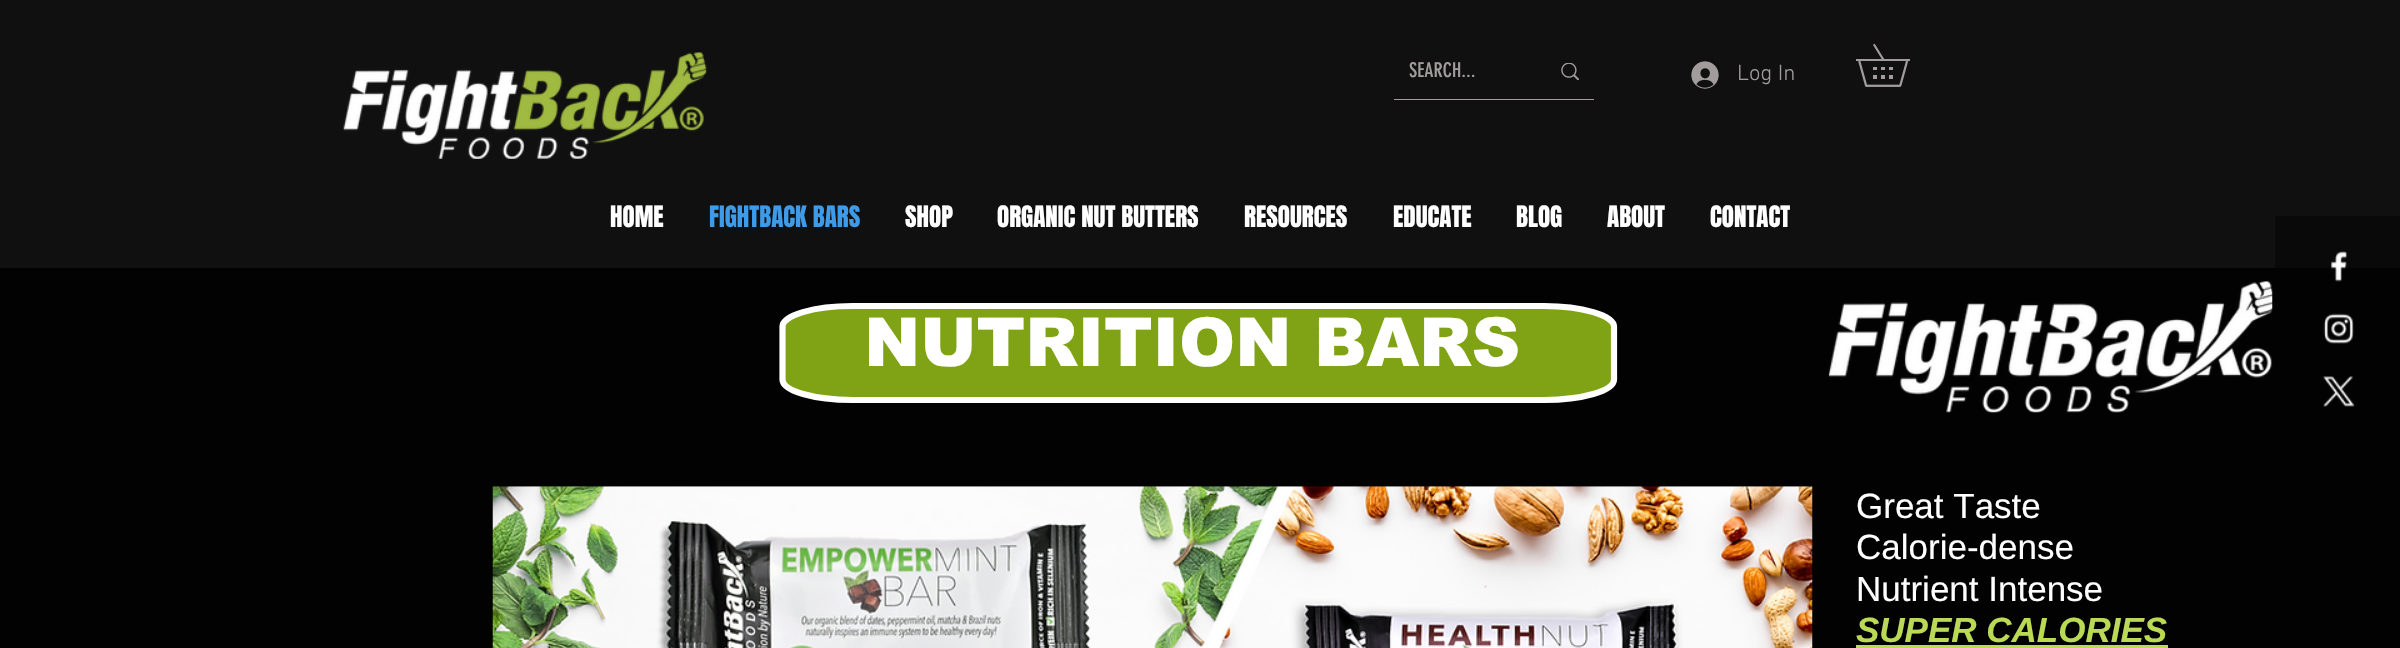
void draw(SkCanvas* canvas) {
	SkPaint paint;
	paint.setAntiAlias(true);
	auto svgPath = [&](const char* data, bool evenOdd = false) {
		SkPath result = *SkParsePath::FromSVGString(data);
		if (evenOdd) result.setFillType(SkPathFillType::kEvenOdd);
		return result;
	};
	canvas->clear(0xff020202);
	paint.setColor(0xff101010);
	canvas->drawRect(SkRect::MakeXYWH(0, 0, 2400, 268), paint);
	paint.setColor(0xff090909);
	canvas->drawRect(SkRect::MakeXYWH(2275, 216, 125, 52), paint);
	canvas->drawImageRect(SkImages::DeferredFromEncodedData(SkData::MakeFromFileName("img1.png")), SkRect::MakeXYWH(343, 52, 364, 107), SkSamplingOptions());
	paint.setColor(0xffa29c9c);
	canvas->drawRect(SkRect::MakeXYWH(1394, 99, 200, 1), paint);
	SkFont f1(fontMgr->matchFamilyStyle("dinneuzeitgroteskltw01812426", SkFontStyle::Normal()), 20);
	f1.setSubpixel(true);
	canvas->drawString("SEARCH...", 1409, 77, f1, paint);
	canvas->drawImageRect(SkImages::DeferredFromEncodedData(SkData::MakeFromFileName("img2.png")), SkRect::MakeXYWH(1561, 63, 18, 17), SkSamplingOptions());
	canvas->drawImageRect(SkImages::DeferredFromEncodedData(SkData::MakeFromFileName("img3.png")), SkRect::MakeXYWH(1691, 61, 28, 28), SkSamplingOptions());
	SkFont f2(fontMgr->matchFamilyStyle("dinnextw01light", SkFontStyle(300, SkFontStyle::kNormal_Width, SkFontStyle::kUpright_Slant)), 22.5);
	f2.setSubpixel(true);
	canvas->drawString("Log In", 1737, 80, f2, paint);
	canvas->drawImageRect(SkImages::DeferredFromEncodedData(SkData::MakeFromFileName("img4.png")), SkRect::MakeXYWH(1856, 43, 54, 44), SkSamplingOptions());
	SkFont f3(fontMgr->matchFamilyStyle("Anton", SkFontStyle::Normal()), 25);
	f3.setSubpixel(true);
	paint.setColor(0xffffffff);
	canvas->drawString("HOME", 610, 227, f3, paint);
	paint.setColor(0xff3d9be9);
	canvas->drawString("FIGHTBACK BARS", 709, 227, f3, paint);
	paint.setColor(0xffffffff);
	canvas->drawString("SHOP", 905, 227, f3, paint);
	canvas->drawString("ORGANIC NUT BUTTERS", 997, 227, f3, paint);
	canvas->drawString("RESOURCES", 1244, 227, f3, paint);
	canvas->drawString("EDUCATE", 1393, 227, f3, paint);
	canvas->drawString("BLOG", 1516, 227, f3, paint);
	canvas->drawString("ABOUT", 1607, 227, f3, paint);
	canvas->drawString("CONTACT", 1710, 227, f3, paint);
	paint.setColor(0xff80a315);
	canvas->drawPath(svgPath("M1544 400H852C814 400 783 391 783 380V327C783 315 814 306 852 306H1544C1582 306 1614 315 1614 327V380C1614 391 1582 400 1544 400Z"), paint);
	paint.setStroke(true);
	paint.setStrokeWidth(6.2);
	paint.setColor(0xffffffff);
	canvas->drawPath(svgPath("M1544 400H852.5C814 400 782.5 391 782.5 379.5V326.5C782.5 315.5 813.5 306 852.5 306H1544C1582 306 1614 315.5 1614 326.5V379.5C1614 391 1582 400 1544 400Z"), paint);
	SkFont f4(fontMgr->matchFamilyStyle("arial", SkFontStyle(900, SkFontStyle::kNormal_Width, SkFontStyle::kUpright_Slant)), 67.5);
	f4.setSubpixel(true);
	paint.setStroke(false);
	canvas->drawString("NUTRITION BARS", 864, 366, f4, paint);
	canvas->drawImageRect(SkImages::DeferredFromEncodedData(SkData::MakeFromFileName("img5.png")), SkRect::MakeXYWH(1828, 281, 445, 132), SkSamplingOptions());
	canvas->drawImageRect(SkImages::DeferredFromEncodedData(SkData::MakeFromFileName("img6.png")), SkRect::MakeXYWH(492, 486, 1321, 162), SkSamplingOptions());
	SkFont f5(fontMgr->matchFamilyStyle("Liberation Sans", SkFontStyle::Normal()), 35);
	f5.setSubpixel(true);
	canvas->drawString("Great Taste", 1856, 518, f5, paint);
	canvas->drawString("Calorie-dense", 1856, 559, f5, paint);
	canvas->drawString("Nutrient Intense", 1856, 601, f5, paint);
	SkFont f6(fontMgr->matchFamilyStyle("Liberation Sans", SkFontStyle::BoldItalic()), 35);
	f6.setSubpixel(true);
	paint.setColor(0xffbada55);
	canvas->drawString("SUPER CALORIES", 1856, 642, f6, paint);
	canvas->drawRect(SkRect::MakeXYWH(1856, 645, 312, 3), paint);
	canvas->drawImageRect(SkImages::DeferredFromEncodedData(SkData::MakeFromFileName("img7.png")), SkRect::MakeXYWH(2331, 251, 17, 31), SkSamplingOptions());
	canvas->drawImageRect(SkImages::DeferredFromEncodedData(SkData::MakeFromFileName("img8.png")), SkRect::MakeXYWH(2323, 313, 31, 31), SkSamplingOptions());
	canvas->drawImageRect(SkImages::DeferredFromEncodedData(SkData::MakeFromFileName("img9.png")), SkRect::MakeXYWH(2323, 376, 32, 31), SkSamplingOptions());
}
